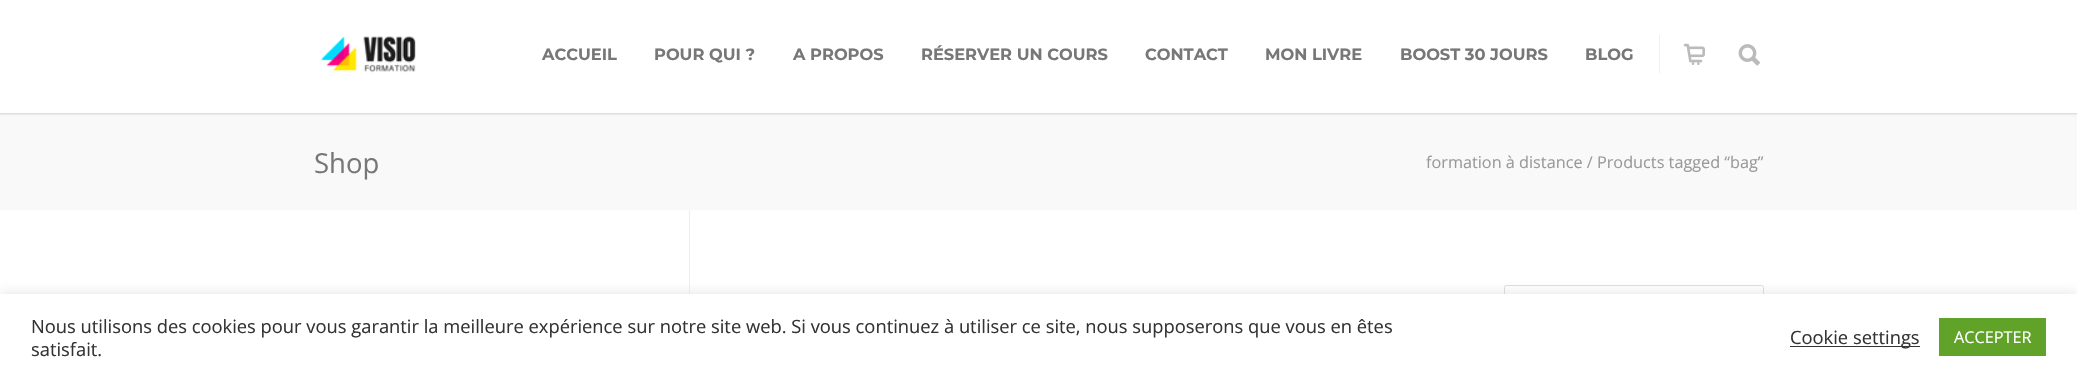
void draw(SkCanvas* canvas) {
	SkPaint paint;
	paint.setAntiAlias(true);
	canvas->clear(0xffffffff);
	paint.setColor(0xfff9f9f9);
	canvas->drawRect(SkRect::MakeXYWH(0, 113, 2077, 97), paint);
	paint.setColor(0x29000000);
	paint.setMaskFilter(SkMaskFilter::MakeBlur(kNormal_SkBlurStyle, 1));
	canvas->drawRect(SkRect::MakeXYWH(-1, -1, 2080, 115), paint);
	paint.setMaskFilter(nullptr);
	paint.setColor(0xffffffff);
	canvas->drawRect(SkRect::MakeXYWH(0, 0, 2077, 113), paint);
	canvas->drawImageRect(SkImages::DeferredFromEncodedData(SkData::MakeFromFileName("img1.png")), SkRect::MakeXYWH(321, 36, 95, 37), SkSamplingOptions());
	SkFont f1(fontMgr->matchFamilyStyle("Montserrat", SkFontStyle::Bold()), 16.25);
	f1.setSubpixel(true);
	paint.setColor(0xff777777);
	canvas->drawString("ACCUEIL", 542, 60, f1, paint);
	canvas->drawString("POUR QUI ?", 654, 60, f1, paint);
	canvas->drawString("A PROPOS", 793, 60, f1, paint);
	canvas->drawString("RÉSERVER UN COURS", 921, 60, f1, paint);
	canvas->drawString("CONTACT", 1145, 60, f1, paint);
	canvas->drawString("MON LIVRE", 1265, 60, f1, paint);
	canvas->drawString("BOOST 30 JOURS", 1400, 60, f1, paint);
	canvas->drawString("BLOG", 1585, 60, f1, paint);
	paint.setColor(0xffefefef);
	canvas->drawRect(SkRect::MakeXYWH(1659, 35, 1, 38), paint);
	canvas->drawImageRect(SkImages::DeferredFromEncodedData(SkData::MakeFromFileName("img2.png")), SkRect::MakeXYWH(1683, 43, 22, 22), SkSamplingOptions());
	canvas->drawImageRect(SkImages::DeferredFromEncodedData(SkData::MakeFromFileName("img3.png")), SkRect::MakeXYWH(1738, 44, 23, 22), SkSamplingOptions());
	SkFont f2(fontMgr->matchFamilyStyle("Open Sans", SkFontStyle::Normal()), 27.5);
	f2.setSubpixel(true);
	paint.setColor(0xff777777);
	canvas->drawString("Shop", 314, 173, f2, paint);
	SkFont f3(fontMgr->matchFamilyStyle("Open Sans", SkFontStyle::Normal()), 16.25);
	f3.setSubpixel(true);
	paint.setColor(0xff999999);
	canvas->drawString("formation à distance / Products tagged “bag”", 1426, 168, f3, paint);
	paint.setColor(0xffefefef);
	canvas->drawRect(SkRect::MakeXYWH(689, 210, 1, 84), paint);
	paint.setStroke(true);
	paint.setStrokeWidth(1);
	paint.setColor(0xffdddddd);
	canvas->drawRoundRect(SkRect::MakeXYWH(1504.5, 285.5, 259, 55), 2, 2, paint);
	paint.setStroke(false);
	paint.setColor(0x4dacabab);
	paint.setMaskFilter(SkMaskFilter::MakeBlur(kNormal_SkBlurStyle, 6));
	canvas->drawRect(SkRect::MakeXYWH(0, 293, 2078, 86), paint);
	paint.setMaskFilter(nullptr);
	paint.setColor(0xffffffff);
	canvas->drawRect(SkRect::MakeXYWH(0, 294, 2077, 86), paint);
	SkFont f4(fontMgr->matchFamilyStyle("Open Sans", SkFontStyle::Normal()), 18.33);
	f4.setSubpixel(true);
	paint.setColor(0xff333333);
	canvas->drawString("Nous utilisons des cookies pour vous garantir la meilleure expérience sur notre site web. Si vous continuez à utiliser ce site, nous supposerons que vous en êtes", 31, 333, f4, paint);
	canvas->drawString("satisfait.", 31, 356, f4, paint);
	canvas->drawRect(SkRect::MakeXYWH(1790, 346, 130, 1), paint);
	canvas->drawString("Cookie settings", 1790, 344, f4, paint);
	paint.setColor(0xff61a229);
	canvas->drawRect(SkRect::MakeXYWH(1939, 318, 107, 38), paint);
	paint.setColor(0xffffffff);
	canvas->drawString("ACCEPTER", 1954, 343, f3, paint);
}
